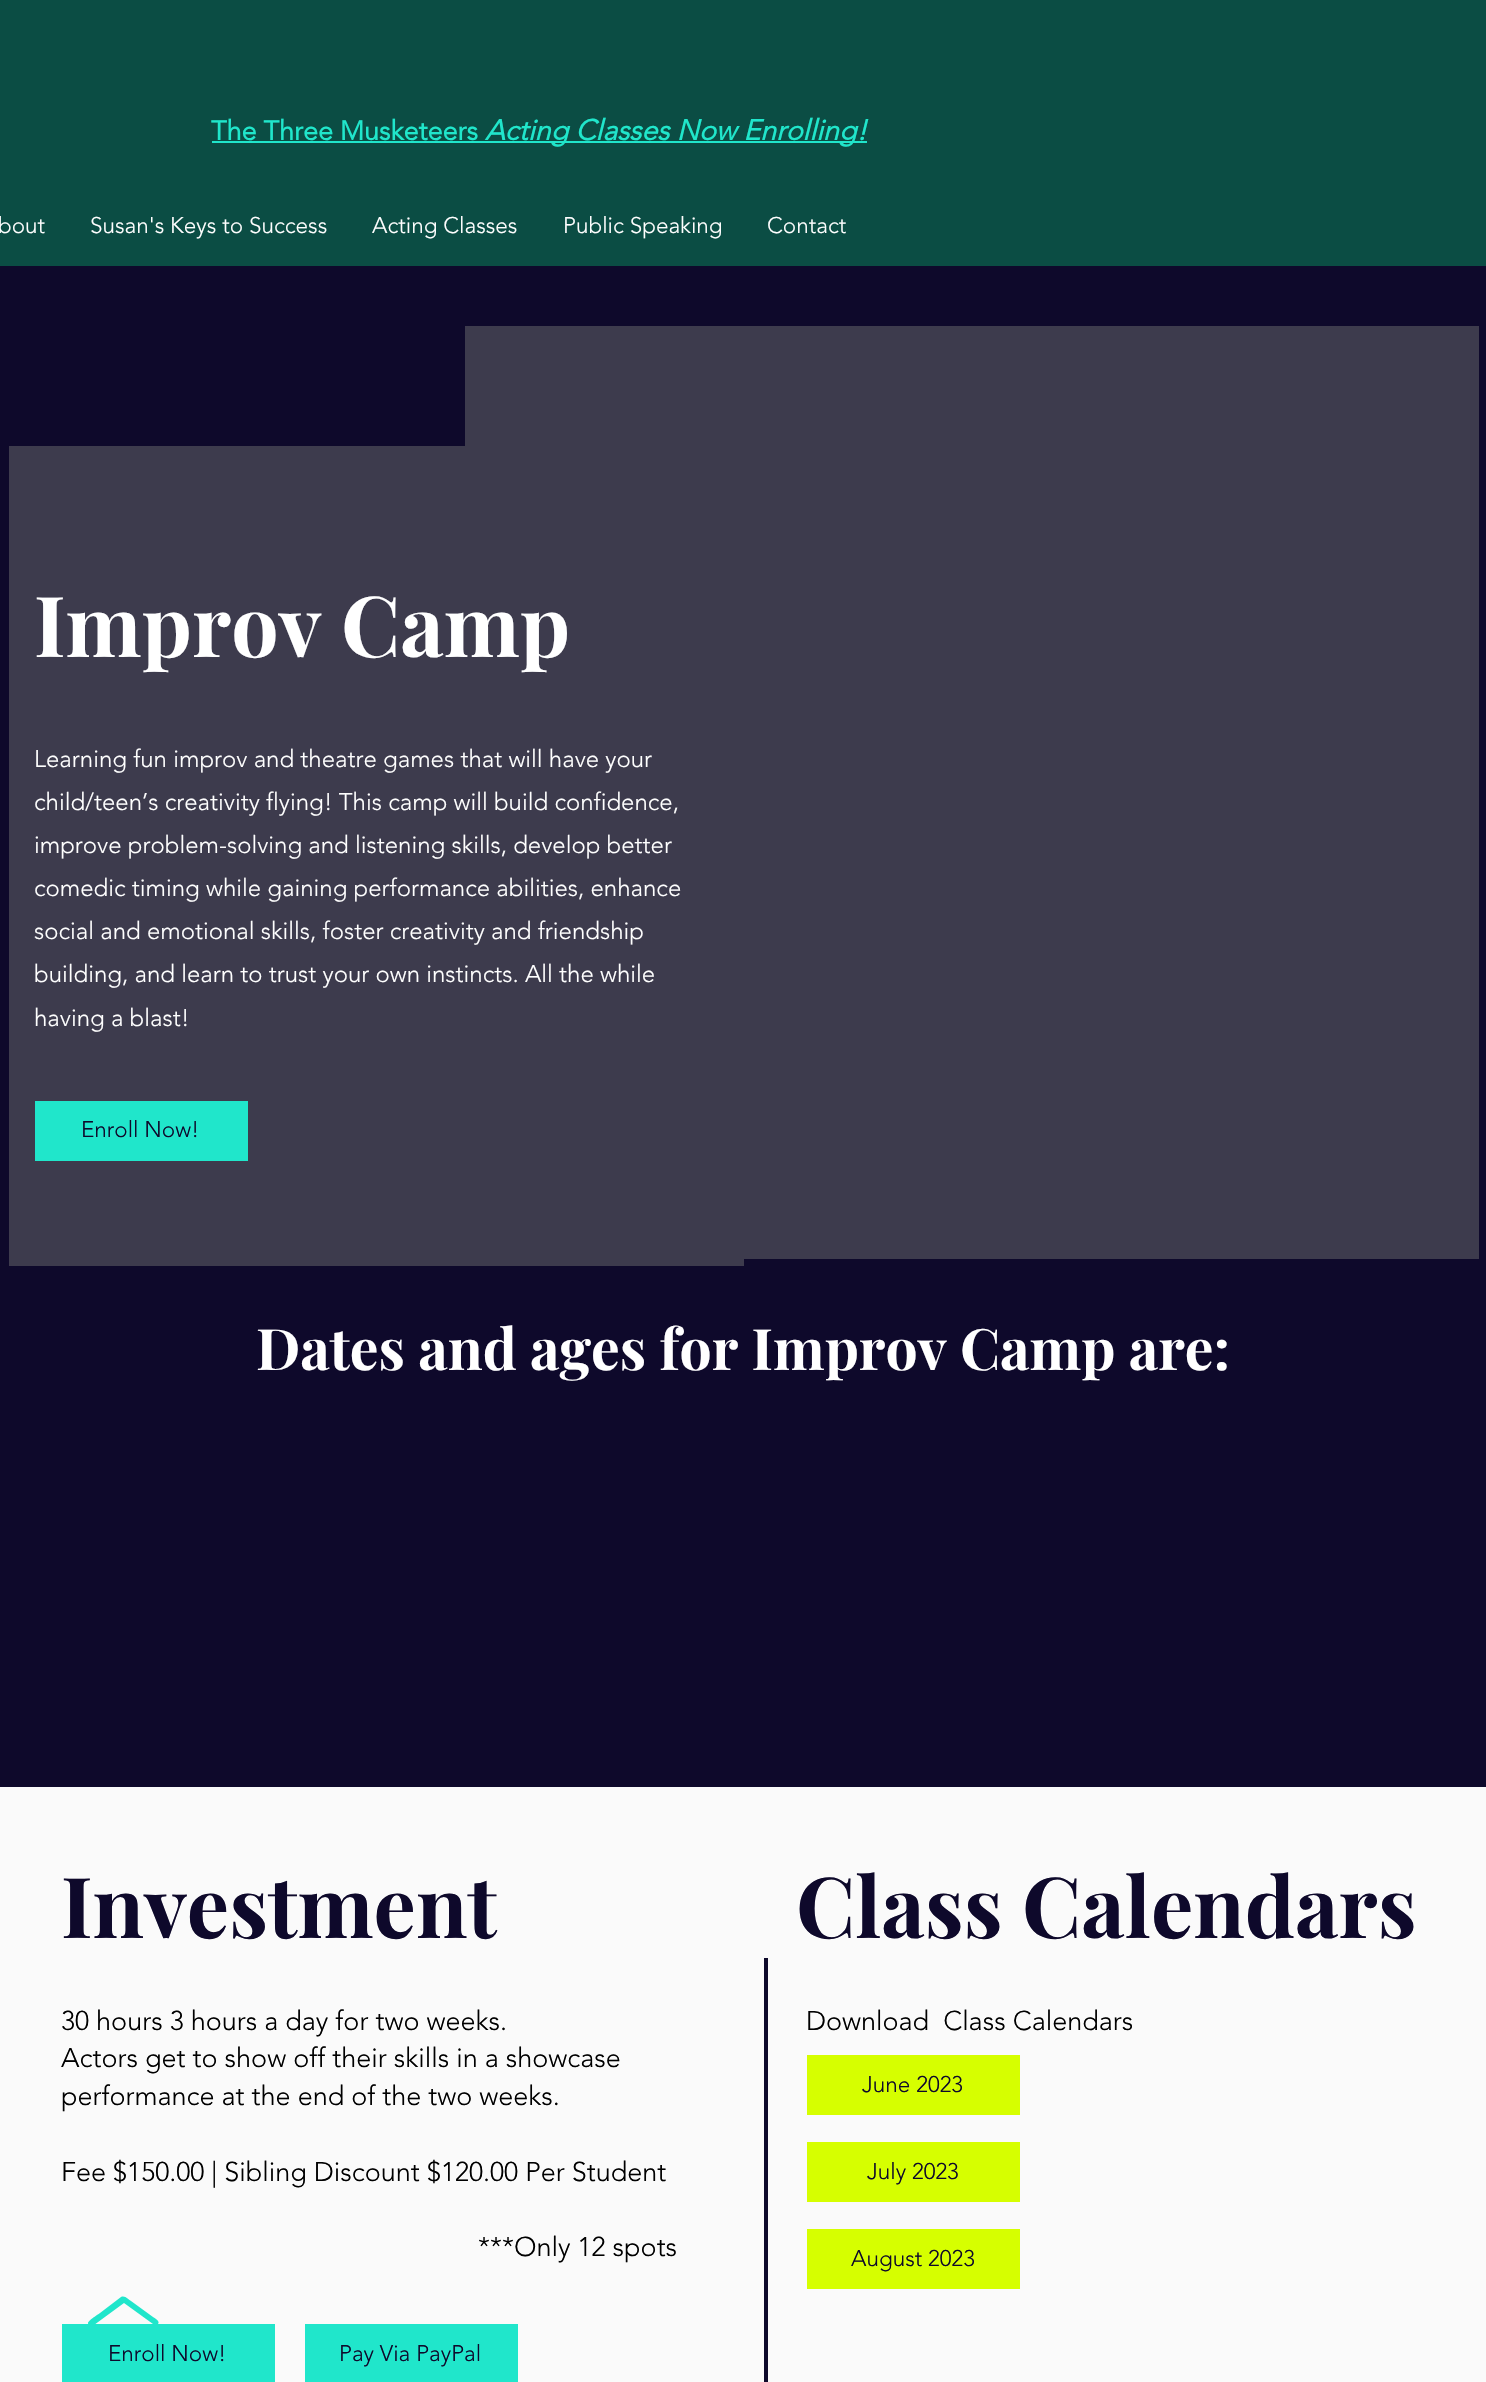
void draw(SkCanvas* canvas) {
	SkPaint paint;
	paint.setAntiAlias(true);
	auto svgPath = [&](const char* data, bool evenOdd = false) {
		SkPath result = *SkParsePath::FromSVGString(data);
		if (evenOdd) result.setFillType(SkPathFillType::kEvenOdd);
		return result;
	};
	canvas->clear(0xff0e092b);
	paint.setColor(0xff0b4d44);
	canvas->drawRect(SkRect::MakeXYWH(0, 0, 1486, 266), paint);
	SkFont f1(fontMgr->matchFamilyStyle("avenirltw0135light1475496", SkFontStyle::Bold()), 27);
	f1.setSubpixel(true);
	paint.setColor(0xff20e6cb);
	canvas->drawString("The Three Musketeers", 211, 140, f1, paint);
	canvas->drawRect(SkRect::MakeXYWH(212, 141, 655, 2), paint);
	SkFont f2(fontMgr->matchFamilyStyle("avenirltw0135light1475496", SkFontStyle::BoldItalic()), 28.5);
	f2.setSubpixel(true);
	canvas->drawString("Acting Classes Now Enrolling!", 485, 140, f2, paint);
	SkFont f3(fontMgr->matchFamilyStyle("avenirltw0135light1475496", SkFontStyle(300, SkFontStyle::kNormal_Width, SkFontStyle::kUpright_Slant)), 22.5);
	f3.setSubpixel(true);
	paint.setColor(0xffffffff);
	canvas->drawString("bout", -2, 233, f3, paint);
	canvas->drawString("Susan's Keys to Success", 90, 233, f3, paint);
	canvas->drawString("Acting Classes", 372, 233, f3, paint);
	canvas->drawString("Public Speaking", 563, 233, f3, paint);
	canvas->drawString("Contact", 767, 233, f3, paint);
	paint.setColor(0xff3d3b4d);
	canvas->drawRect(SkRect::MakeXYWH(465, 326, 1014, 933), paint);
	canvas->drawRect(SkRect::MakeXYWH(9, 446, 735, 820), paint);
	SkFont f4(fontMgr->matchFamilyStyle("Playfair Display", SkFontStyle::Bold()), 84);
	f4.setSubpixel(true);
	paint.setColor(0xffffffff);
	canvas->drawString("Improv Camp", 34, 657, f4, paint);
	SkFont f5(fontMgr->matchFamilyStyle("avenirltw0135light1475496", SkFontStyle(300, SkFontStyle::kNormal_Width, SkFontStyle::kUpright_Slant)), 24);
	f5.setSubpixel(true);
	canvas->drawString("Learning fun improv and theatre games that will have your", 34, 767, f5, paint);
	canvas->drawString("child/teen’s creativity flying! This camp will build confidence,", 34, 810, f5, paint);
	canvas->drawString("improve problem-solving and listening skills, develop better", 34, 853, f5, paint);
	canvas->drawString("comedic timing while gaining performance abilities, enhance", 34, 896, f5, paint);
	canvas->drawString("social and emotional skills, foster creativity and friendship", 34, 939, f5, paint);
	canvas->drawString("building, and learn to trust your own instincts. All the while", 34, 982, f5, paint);
	canvas->drawString("having a blast!", 34, 1026, f5, paint);
	paint.setColor(0xff20e6cb);
	canvas->drawRect(SkRect::MakeXYWH(35, 1101, 213, 60), paint);
	paint.setColor(0xff0e092b);
	canvas->drawString("Enroll Now!", 81, 1137, f3, paint);
	SkFont f6(fontMgr->matchFamilyStyle("Playfair Display", SkFontStyle::Bold()), 57);
	f6.setSubpixel(true);
	paint.setColor(0xffffffff);
	canvas->drawString("Dates and ages for Improv Camp are:", 256, 1370, f6, paint);
	paint.setColor(0xfffafafa);
	canvas->drawRect(SkRect::MakeXYWH(0, 1787, 1486, 595), paint);
	paint.setColor(0xff0e092b);
	canvas->drawString("Investment", 61, 1938, f4, paint);
	canvas->drawString("Class Calendars", 796, 1938, f4, paint);
	SkFont f7(fontMgr->matchFamilyStyle("avenirltw0135light1475496", SkFontStyle(300, SkFontStyle::kNormal_Width, SkFontStyle::kUpright_Slant)), 27);
	f7.setSubpixel(true);
	paint.setColor(0xff000000);
	canvas->drawString("30 hours 3 hours a day for two weeks.", 61, 2030, f7, paint);
	canvas->drawString("Actors get to show off their skills in a showcase", 61, 2067, f7, paint);
	canvas->drawString("performance at the end of the two weeks.", 61, 2105, f7, paint);
	canvas->drawString("Fee $150.00 | Sibling Discount $120.00 Per Student", 61, 2181, f7, paint);
	canvas->drawString("***Only 12 spots", 478, 2256, f7, paint);
	paint.setColor(0xff0e092b);
	canvas->drawRect(SkRect::MakeXYWH(764, 1958, 4, 424), paint);
	paint.setColor(0xff000000);
	canvas->drawString("Download  Class Calendars", 806, 2030, f7, paint);
	paint.setColor(0xffd6ff00);
	canvas->drawRect(SkRect::MakeXYWH(807, 2055, 213, 60), paint);
	paint.setColor(0xff0e092b);
	canvas->drawString("June 2023", 862, 2092, f3, paint);
	paint.setColor(0xffd6ff00);
	canvas->drawRect(SkRect::MakeXYWH(807, 2142, 213, 60), paint);
	paint.setColor(0xff0e092b);
	canvas->drawString("July 2023", 867, 2179, f3, paint);
	paint.setColor(0xffd6ff00);
	canvas->drawRect(SkRect::MakeXYWH(807, 2229, 213, 60), paint);
	paint.setColor(0xff0e092b);
	canvas->drawString("August 2023", 851, 2266, f3, paint);
	paint.setColor(0xff20e6cb);
	canvas->drawRect(SkRect::MakeXYWH(62, 2324, 213, 58), paint);
	paint.setColor(0xff0e092b);
	canvas->drawString("Enroll Now!", 108, 2361, f3, paint);
	paint.setColor(0xff20e6cb);
	canvas->drawRect(SkRect::MakeXYWH(305, 2324, 213, 58), paint);
	paint.setColor(0xff0e092b);
	canvas->drawString("Pay Via PayPal", 339, 2361, f3, paint);
	paint.setColor(0xff20e6cb);
	canvas->drawPath(svgPath("M156 2325L153 2324L124 2303L94 2325H90C84 2323 93 2318 100 2313L121 2297C125 2295 129 2300 131 2301L153 2317C153 2317 161 2321 158 2324Z"), paint);
}
